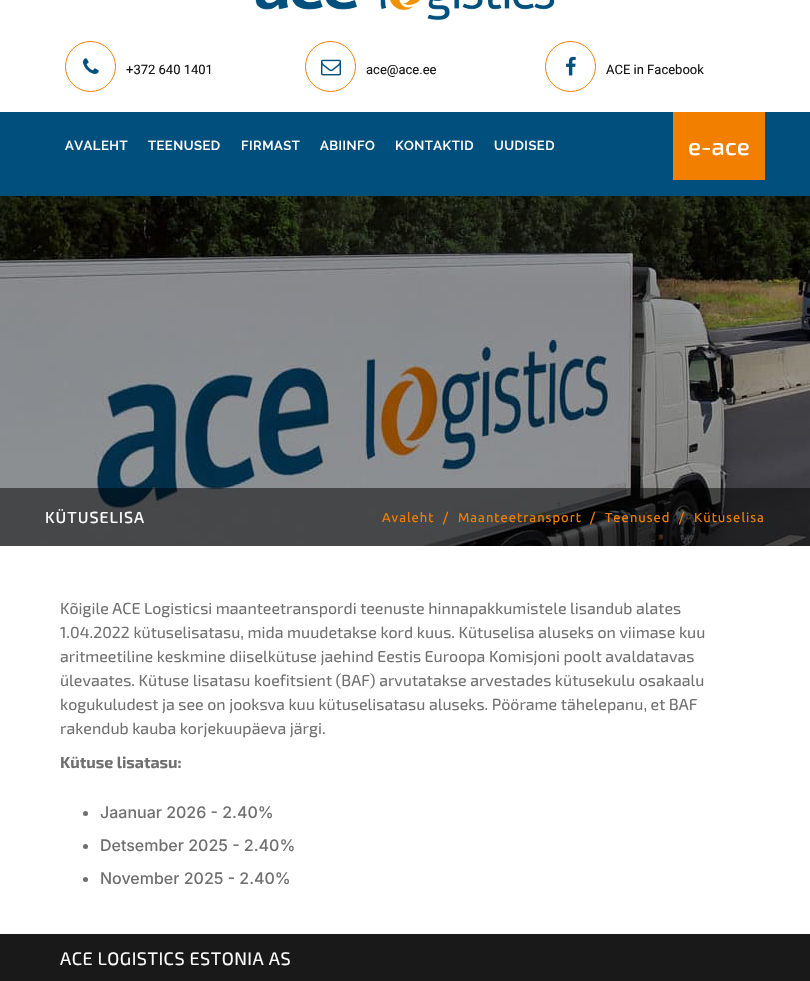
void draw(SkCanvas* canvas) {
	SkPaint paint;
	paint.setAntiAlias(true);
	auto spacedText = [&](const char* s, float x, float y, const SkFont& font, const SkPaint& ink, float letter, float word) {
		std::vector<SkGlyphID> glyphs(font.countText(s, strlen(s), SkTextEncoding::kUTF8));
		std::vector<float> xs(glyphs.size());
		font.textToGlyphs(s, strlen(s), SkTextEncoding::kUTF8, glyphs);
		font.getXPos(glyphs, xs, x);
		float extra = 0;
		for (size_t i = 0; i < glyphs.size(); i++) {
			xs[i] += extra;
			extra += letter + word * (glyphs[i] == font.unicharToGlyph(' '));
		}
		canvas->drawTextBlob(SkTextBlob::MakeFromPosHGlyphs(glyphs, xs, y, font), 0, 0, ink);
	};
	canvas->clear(0xffffffff);
	canvas->drawImageRect(SkImages::DeferredFromEncodedData(SkData::MakeFromFileName("img1.png")), SkRect::MakeXYWH(255, 0, 300, 21), SkSamplingOptions());
	paint.setStroke(true);
	paint.setStrokeWidth(1);
	paint.setColor(0xfff27f00);
	canvas->drawCircle(90.5, 66.5, 25, paint);
	canvas->drawImageRect(SkImages::DeferredFromEncodedData(SkData::MakeFromFileName("img2.png")), SkRect::MakeXYWH(83, 58, 16, 16), SkSamplingOptions());
	SkFont f1(fontMgr->matchFamilyStyle("Roboto", SkFontStyle::Normal()), 13);
	f1.setSubpixel(true);
	paint.setStroke(false);
	paint.setColor(0xff141414);
	canvas->drawString("+372 640 1401", 126, 74, f1, paint);
	paint.setStroke(true);
	paint.setColor(0xfff27f00);
	canvas->drawCircle(330.5, 66.5, 25, paint);
	canvas->drawImageRect(SkImages::DeferredFromEncodedData(SkData::MakeFromFileName("img3.png")), SkRect::MakeXYWH(321, 59, 20, 17), SkSamplingOptions());
	paint.setStroke(false);
	paint.setColor(0xff141414);
	canvas->drawString("ace@ace.ee", 366, 74, f1, paint);
	paint.setStroke(true);
	paint.setColor(0xfff27f00);
	canvas->drawCircle(570.5, 66.5, 25, paint);
	canvas->drawImageRect(SkImages::DeferredFromEncodedData(SkData::MakeFromFileName("img4.png")), SkRect::MakeXYWH(566, 56, 10, 20), SkSamplingOptions());
	paint.setStroke(false);
	paint.setColor(0xff141414);
	canvas->drawString("ACE in Facebook", 606, 74, f1, paint);
	paint.setColor(0xff004f7c);
	canvas->drawRect(SkRect::MakeXYWH(0, 112, 810, 84), paint);
	SkFont f2(fontMgr->matchFamilyStyle("Raleway", SkFontStyle(600, SkFontStyle::kNormal_Width, SkFontStyle::kUpright_Slant)), 13);
	f2.setSubpixel(true);
	paint.setColor(0xffffffff);
	spacedText("AVALEHT", 65, 150, f2, paint, 0.5, 0);
	spacedText("TEENUSED", 148, 150, f2, paint, 0.5, 0);
	spacedText("FIRMAST", 241, 150, f2, paint, 0.5, 0);
	spacedText("ABIINFO", 320, 150, f2, paint, 0.5, 0);
	spacedText("KONTAKTID", 395, 150, f2, paint, 0.5, 0);
	spacedText("UUDISED", 494, 150, f2, paint, 0.5, 0);
	paint.setColor(0xfff27f00);
	canvas->drawRect(SkRect::MakeXYWH(673, 112, 92, 68), paint);
	SkFont f3(fontMgr->matchFamilyStyle("Exo 2", SkFontStyle(500, SkFontStyle::kNormal_Width, SkFontStyle::kUpright_Slant)), 24);
	f3.setSubpixel(true);
	paint.setColor(0xffffffff);
	canvas->drawString("e-ace", 688, 155, f3, paint);
	canvas->drawImageRect(SkImages::DeferredFromEncodedData(SkData::MakeFromFileName("img5.png")), SkRect::MakeXYWH(0, 196, 810, 350), SkSamplingOptions());
	paint.setColor(0x80000000);
	canvas->drawRect(SkRect::MakeXYWH(0, 488, 810, 58), paint);
	SkFont f4(fontMgr->matchFamilyStyle("Exo 2", SkFontStyle(500, SkFontStyle::kNormal_Width, SkFontStyle::kUpright_Slant)), 16);
	f4.setSubpixel(true);
	paint.setColor(0xffffffff);
	spacedText("KÜTUSELISA", 45, 523, f4, paint, 1, 0);
	SkFont f5(fontMgr->matchFamilyStyle("Ubuntu", SkFontStyle::Normal()), 13);
	f5.setSubpixel(true);
	paint.setColor(0xfff27f00);
	spacedText("Avaleht", 382, 522, f5, paint, 1, 0);
	spacedText("/", 443, 522, f5, paint, 1, 0);
	spacedText("Maanteetransport", 458, 522, f5, paint, 1, 0);
	spacedText("/", 590, 522, f5, paint, 1, 0);
	spacedText("Teenused", 605, 522, f5, paint, 1, 0);
	spacedText("/", 679, 522, f5, paint, 1, 0);
	spacedText("Kütuselisa", 694, 522, f5, paint, 1, 0);
	SkFont f6(fontMgr->matchFamilyStyle("Exo 2", SkFontStyle::Normal()), 16);
	f6.setSubpixel(true);
	paint.setColor(0xff6f6f6f);
	canvas->drawString("Kõigile ACE Logisticsi maanteetranspordi teenuste hinnapakkumistele lisandub alates", 60, 614, f6, paint);
	canvas->drawString("1.04.2022 kütuselisatasu, mida muudetakse kord kuus. Kütuselisa aluseks on viimase kuu", 60, 638, f6, paint);
	canvas->drawString("aritmeetiline keskmine diiselkütuse jaehind Eestis Euroopa Komisjoni poolt avaldatavas", 60, 662, f6, paint);
	canvas->drawString("ülevaates. Kütuse lisatasu koefitsient (BAF) arvutatakse arvestades kütusekulu osakaalu", 60, 686, f6, paint);
	canvas->drawString("kogukuludest ja see on jooksva kuu kütuselisatasu aluseks. Pöörame tähelepanu, et BAF", 60, 710, f6, paint);
	canvas->drawString("rakendub kauba korjekuupäeva järgi.", 60, 734, f6, paint);
	SkFont f7(fontMgr->matchFamilyStyle("Exo 2", SkFontStyle::Bold()), 16);
	f7.setSubpixel(true);
	canvas->drawString("Kütuse lisatasu:", 60, 768, f7, paint);
	canvas->drawImageRect(SkImages::DeferredFromEncodedData(SkData::MakeFromFileName("img6.png")), SkRect::MakeXYWH(83, 806, 211, 78), SkSamplingOptions());
	paint.setColor(0xff191919);
	canvas->drawRect(SkRect::MakeXYWH(0, 934, 810, 47), paint);
	SkFont f8(fontMgr->matchFamilyStyle("Exo 2", SkFontStyle::Normal()), 18);
	f8.setSubpixel(true);
	paint.setColor(0xffffffff);
	spacedText("ACE LOGISTICS ESTONIA AS", 60, 965, f8, paint, 0.5, 0);
}
